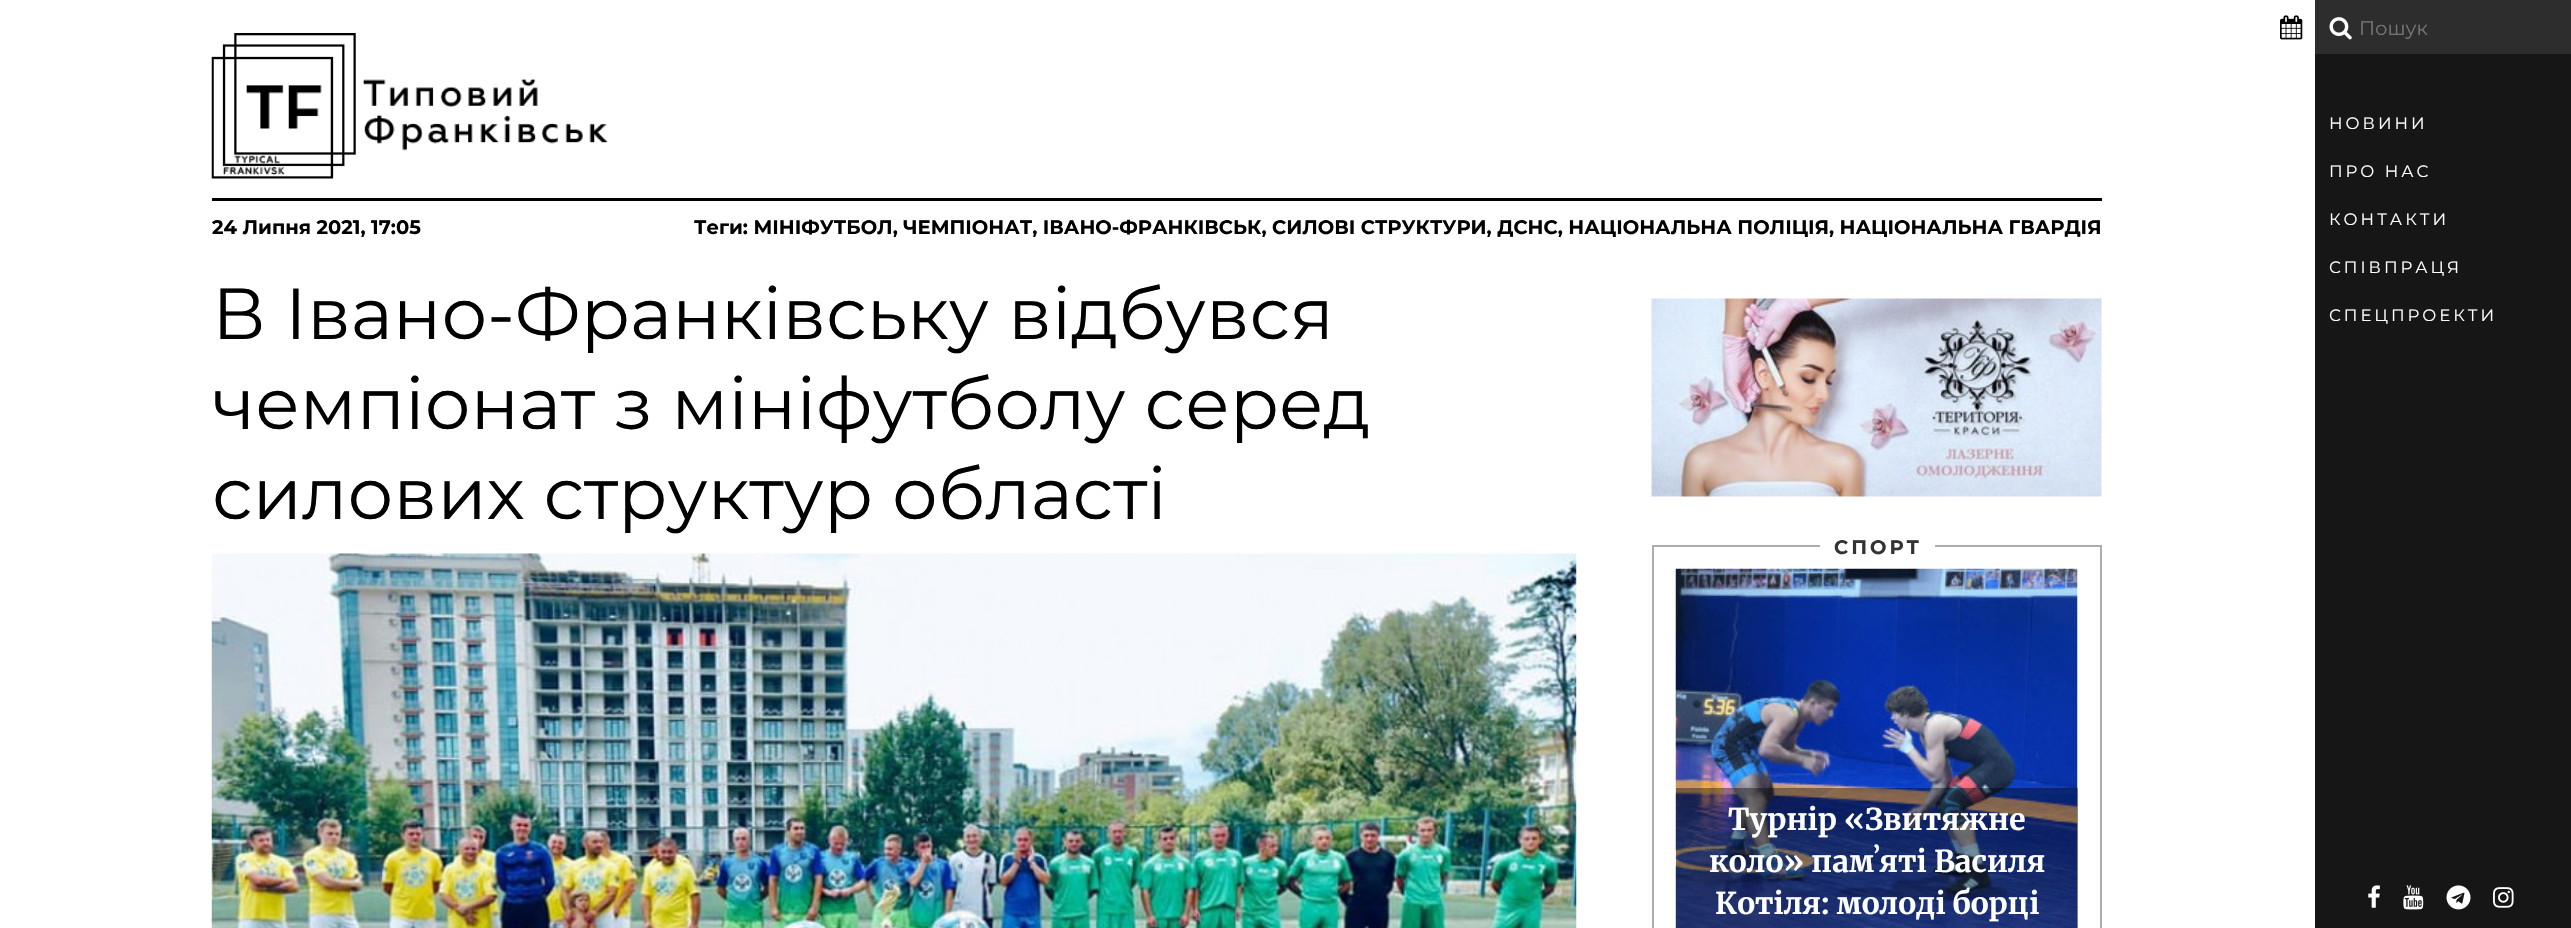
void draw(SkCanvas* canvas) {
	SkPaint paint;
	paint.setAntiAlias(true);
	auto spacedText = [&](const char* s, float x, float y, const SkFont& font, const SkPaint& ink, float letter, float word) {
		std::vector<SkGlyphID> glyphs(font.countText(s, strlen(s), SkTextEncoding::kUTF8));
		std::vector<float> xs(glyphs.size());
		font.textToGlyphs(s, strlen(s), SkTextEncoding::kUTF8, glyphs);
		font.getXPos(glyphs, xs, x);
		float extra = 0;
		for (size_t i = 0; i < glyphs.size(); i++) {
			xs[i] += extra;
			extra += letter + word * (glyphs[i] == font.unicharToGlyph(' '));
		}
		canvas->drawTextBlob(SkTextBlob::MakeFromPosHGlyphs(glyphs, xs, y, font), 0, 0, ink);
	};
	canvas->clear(0xffffffff);
	canvas->drawImageRect(SkImages::DeferredFromEncodedData(SkData::MakeFromFileName("img1.png")), SkRect::MakeXYWH(211, 33, 397, 146), SkSamplingOptions());
	paint.setColor(0xff161616);
	canvas->drawRect(SkRect::MakeXYWH(2315, 54, 256, 874), paint);
	canvas->drawImageRect(SkImages::DeferredFromEncodedData(SkData::MakeFromFileName("img2.png")), SkRect::MakeXYWH(2280, 15, 23, 25), SkSamplingOptions());
	paint.setColor(0xff2d2d2d);
	canvas->drawRect(SkRect::MakeXYWH(2315, 0, 256, 54), paint);
	canvas->drawImageRect(SkImages::DeferredFromEncodedData(SkData::MakeFromFileName("img3.png")), SkRect::MakeXYWH(2329, 17, 23, 23), SkSamplingOptions());
	SkFont f1(fontMgr->matchFamilyStyle("Montserrat", SkFontStyle::Normal()), 19.5);
	f1.setSubpixel(true);
	paint.setColor(0xff757575);
	canvas->drawString("Пошук", 2359, 35, f1, paint);
	SkFont f2(fontMgr->matchFamilyStyle("Montserrat", SkFontStyle::Normal()), 16.5);
	f2.setSubpixel(true);
	paint.setColor(0xffffffff);
	spacedText("НОВИНИ", 2329, 129, f2, paint, 3, 0);
	spacedText("ПРО НАС", 2329, 177, f2, paint, 3, 0);
	spacedText("КОНТАКТИ", 2329, 225, f2, paint, 3, 0);
	spacedText("СПІВПРАЦЯ", 2329, 273, f2, paint, 3, 0);
	spacedText("СПЕЦПРОЕКТИ", 2329, 321, f2, paint, 3, 0);
	canvas->drawImageRect(SkImages::DeferredFromEncodedData(SkData::MakeFromFileName("img4.png")), SkRect::MakeXYWH(2368, 885, 12, 23), SkSamplingOptions());
	canvas->drawImageRect(SkImages::DeferredFromEncodedData(SkData::MakeFromFileName("img5.png")), SkRect::MakeXYWH(2403, 885, 21, 25), SkSamplingOptions());
	canvas->drawImageRect(SkImages::DeferredFromEncodedData(SkData::MakeFromFileName("img6.png")), SkRect::MakeXYWH(2446, 885, 25, 25), SkSamplingOptions());
	canvas->drawImageRect(SkImages::DeferredFromEncodedData(SkData::MakeFromFileName("img7.png")), SkRect::MakeXYWH(2493, 887, 21, 21), SkSamplingOptions());
	paint.setColor(0xff000000);
	canvas->drawRect(SkRect::MakeXYWH(212, 198, 1890, 3), paint);
	SkFont f3(fontMgr->matchFamilyStyle("Montserrat", SkFontStyle::Bold()), 19.5);
	f3.setSubpixel(true);
	canvas->drawString("24 Липня 2021, 17:05", 212, 234, f3, paint);
	canvas->drawString("Теги: МІНІФУТБОЛ, ЧЕМПІОНАТ, ІВАНО-ФРАНКІВСЬК, СИЛОВІ СТРУКТУРИ, ДСНС, НАЦІОНАЛЬНА ПОЛІЦІЯ, НАЦІОНАЛЬНА ГВАРДІЯ", 694, 234, f3, paint);
	SkFont f4(fontMgr->matchFamilyStyle("Montserrat", SkFontStyle::Normal()), 72);
	f4.setSubpixel(true);
	canvas->drawString("В Івано-Франківську відбувся", 212, 339, f4, paint);
	canvas->drawString("чемпіонат з мініфутболу серед", 212, 429, f4, paint);
	canvas->drawString("силових структур області", 212, 519, f4, paint);
	canvas->drawImageRect(SkImages::DeferredFromEncodedData(SkData::MakeFromFileName("img8.png")), SkRect::MakeXYWH(211, 553, 1366, 375), SkSamplingOptions());
	canvas->drawImageRect(SkImages::DeferredFromEncodedData(SkData::MakeFromFileName("img9.png")), SkRect::MakeXYWH(1651, 298, 451, 199), SkSamplingOptions());
	paint.setStroke(true);
	paint.setStrokeWidth(2);
	paint.setColor(0xffadadad);
	canvas->drawRect(SkRect::MakeXYWH(1653, 546, 448, 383), paint);
	paint.setStroke(false);
	paint.setColor(0xffffffff);
	canvas->drawRect(SkRect::MakeXYWH(1820, 545, 115, 2), paint);
	paint.setColor(0xff333333);
	spacedText("СПОРТ", 1834, 554, f3, paint, 3, 0);
	canvas->drawImageRect(SkImages::DeferredFromEncodedData(SkData::MakeFromFileName("img10.png")), SkRect::MakeXYWH(1675, 568, 403, 360), SkSamplingOptions());
	paint.setColor(0x66000000);
	canvas->drawRect(SkRect::MakeXYWH(1676, 788, 402, 140), paint);
	SkFont f5(fontMgr->matchFamilyStyle("Merriweather", SkFontStyle::Bold()), 30);
	f5.setSubpixel(true);
	paint.setColor(0xffffffff);
	canvas->drawString("Турнір «Звитяжне", 1728, 830, f5, paint);
	canvas->drawString("коло» памʼяті Василя", 1709, 872, f5, paint);
	canvas->drawString("Котіля: молоді борці", 1715, 914, f5, paint);
}
